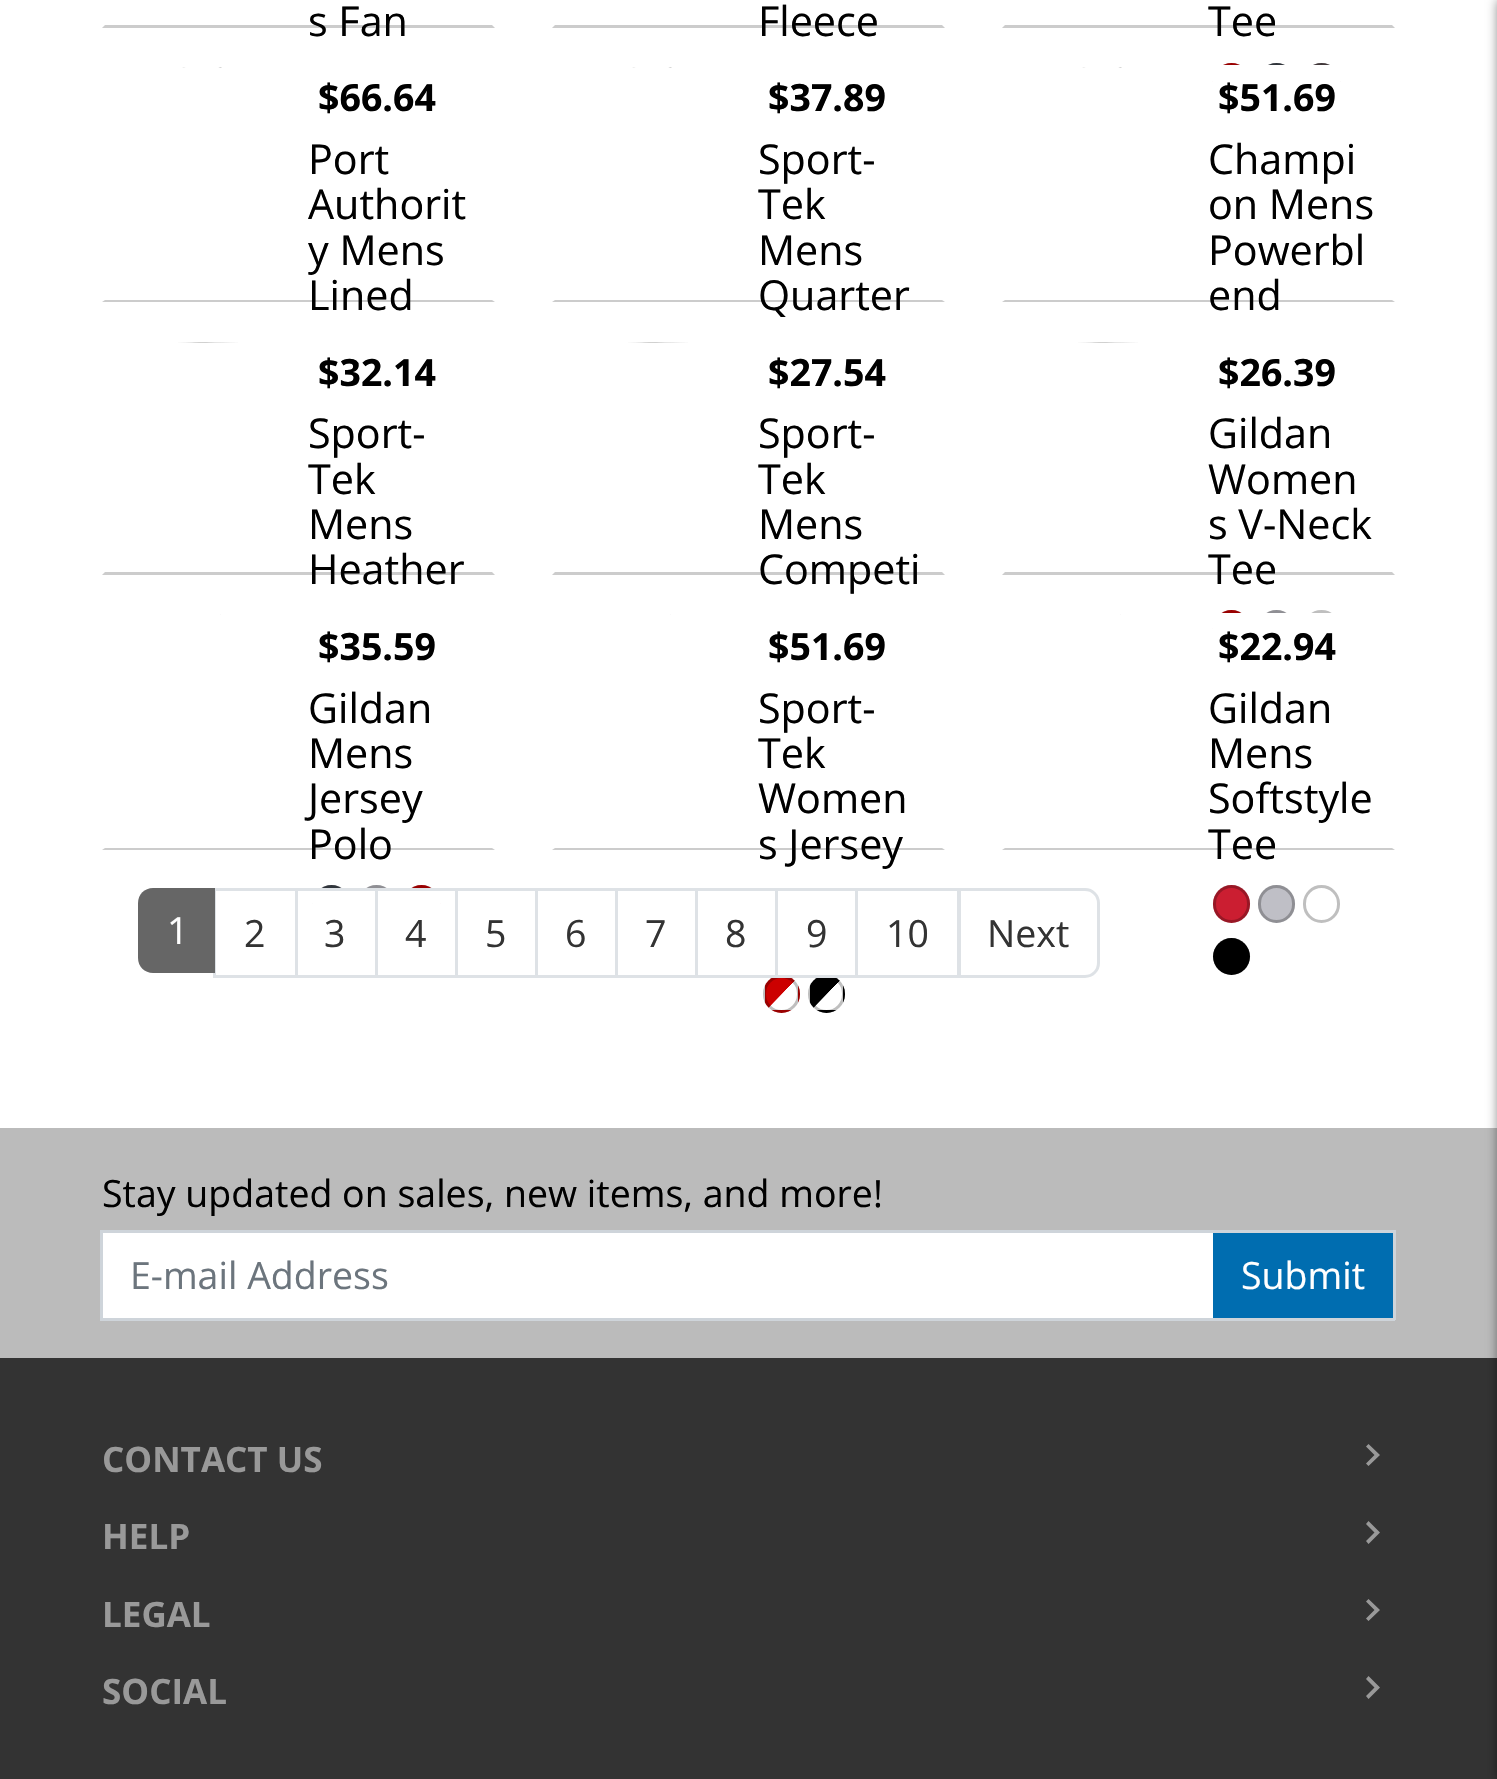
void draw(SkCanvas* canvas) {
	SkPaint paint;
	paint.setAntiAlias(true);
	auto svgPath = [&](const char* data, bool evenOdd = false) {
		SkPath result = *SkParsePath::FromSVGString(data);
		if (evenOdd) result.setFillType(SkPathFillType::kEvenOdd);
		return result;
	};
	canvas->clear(0xffffffff);
	paint.setColor(0xffcccccc);
	canvas->drawPath(svgPath("M495 28H102L105 25H492Z"), paint);
	SkFont f1(fontMgr->matchFamilyStyle("Open Sans", SkFontStyle::Normal()), 41.25);
	f1.setSubpixel(true);
	paint.setColor(0xff000000);
	canvas->drawString("s Fan", 308, 36, f1, paint);
	paint.setColor(0xffcccccc);
	canvas->drawPath(svgPath("M945 28H552L555 25H942Z"), paint);
	paint.setColor(0xff000000);
	canvas->drawString("Fleece", 758, 36, f1, paint);
	paint.setColor(0xffcccccc);
	canvas->drawPath(svgPath("M1395 28H1002L1005 25H1392Z"), paint);
	paint.setColor(0xff000000);
	canvas->drawString("Tee", 1208, 36, f1, paint);
	paint.setColor(0xffcc0000);
	canvas->drawCircle(1231.5, 81.5, 18.5, paint);
	paint.setStroke(true);
	paint.setStrokeWidth(3);
	paint.setColor(0x40000000);
	canvas->drawCircle(1231.5, 81.5, 17, paint);
	paint.setStroke(false);
	paint.setColor(0xff40464f);
	canvas->drawCircle(1276.5, 81.5, 18.5, paint);
	paint.setStroke(true);
	paint.setColor(0x40000000);
	canvas->drawCircle(1276.5, 81.5, 17, paint);
	paint.setStroke(false);
	paint.setColor(0xff564a4d);
	canvas->drawCircle(1321.5, 81.5, 18.5, paint);
	paint.setStroke(true);
	paint.setColor(0x40000000);
	canvas->drawCircle(1321.5, 81.5, 17, paint);
	paint.setStroke(false);
	paint.setColor(0xffcccccc);
	canvas->drawPath(svgPath("M495 302H102L105 300H492Z"), paint);
	canvas->drawImageRect(SkImages::DeferredFromEncodedData(SkData::MakeFromFileName("img1.png")), SkRect::MakeXYWH(182, 67, 40, 1), SkSamplingOptions());
	SkFont f2(fontMgr->matchFamilyStyle("Open Sans", SkFontStyle::Bold()), 37.5);
	f2.setSubpixel(true);
	paint.setColor(0xff000000);
	canvas->drawString("$66.64", 318, 111, f2, paint);
	canvas->drawString("Port", 308, 174, f1, paint);
	canvas->drawString("Authorit", 308, 219, f1, paint);
	canvas->drawString("y Mens", 308, 265, f1, paint);
	canvas->drawString("Lined", 308, 310, f1, paint);
	paint.setColor(0xffcccccc);
	canvas->drawPath(svgPath("M945 302H552L555 300H942Z"), paint);
	canvas->drawImageRect(SkImages::DeferredFromEncodedData(SkData::MakeFromFileName("img1.png")), SkRect::MakeXYWH(632, 67, 40, 1), SkSamplingOptions());
	paint.setColor(0xff000000);
	canvas->drawString("$37.89", 768, 111, f2, paint);
	canvas->drawString("Sport-", 758, 174, f1, paint);
	canvas->drawString("Tek", 758, 219, f1, paint);
	canvas->drawString("Mens", 758, 265, f1, paint);
	canvas->drawString("Quarter", 758, 310, f1, paint);
	paint.setColor(0xffffffff);
	canvas->drawRect(SkRect::MakeXYWH(1213, 65, 127, 35), paint);
	paint.setColor(0xffcccccc);
	canvas->drawPath(svgPath("M1395 302H1002L1005 300H1392Z"), paint);
	canvas->drawImageRect(SkImages::DeferredFromEncodedData(SkData::MakeFromFileName("img1.png")), SkRect::MakeXYWH(1082, 67, 40, 1), SkSamplingOptions());
	paint.setColor(0xff000000);
	canvas->drawString("$51.69", 1218, 111, f2, paint);
	canvas->drawString("Champi", 1208, 174, f1, paint);
	canvas->drawString("on Mens", 1208, 219, f1, paint);
	canvas->drawString("Powerbl", 1208, 265, f1, paint);
	canvas->drawString("end", 1208, 310, f1, paint);
	paint.setColor(0xffcccccc);
	canvas->drawPath(svgPath("M495 575H102L105 572H492Z"), paint);
	canvas->drawImageRect(SkImages::DeferredFromEncodedData(SkData::MakeFromFileName("img2.png")), SkRect::MakeXYWH(178, 342, 60, 1), SkSamplingOptions());
	paint.setColor(0xff000000);
	canvas->drawString("$32.14", 318, 386, f2, paint);
	canvas->drawString("Sport-", 308, 448, f1, paint);
	canvas->drawString("Tek", 308, 494, f1, paint);
	canvas->drawString("Mens", 308, 539, f1, paint);
	canvas->drawString("Heather", 308, 584, f1, paint);
	paint.setColor(0xffcccccc);
	canvas->drawPath(svgPath("M945 575H552L555 572H942Z"), paint);
	canvas->drawImageRect(SkImages::DeferredFromEncodedData(SkData::MakeFromFileName("img2.png")), SkRect::MakeXYWH(628, 342, 60, 1), SkSamplingOptions());
	paint.setColor(0xff000000);
	canvas->drawString("$27.54", 768, 386, f2, paint);
	canvas->drawString("Sport-", 758, 448, f1, paint);
	canvas->drawString("Tek", 758, 494, f1, paint);
	canvas->drawString("Mens", 758, 539, f1, paint);
	canvas->drawString("Competi", 758, 584, f1, paint);
	paint.setColor(0xffcccccc);
	canvas->drawPath(svgPath("M1395 575H1002L1005 572H1392Z"), paint);
	canvas->drawImageRect(SkImages::DeferredFromEncodedData(SkData::MakeFromFileName("img2.png")), SkRect::MakeXYWH(1078, 342, 60, 1), SkSamplingOptions());
	paint.setColor(0xff000000);
	canvas->drawString("$26.39", 1218, 386, f2, paint);
	canvas->drawString("Gildan", 1208, 448, f1, paint);
	canvas->drawString("Women", 1208, 494, f1, paint);
	canvas->drawString("s V-Neck", 1208, 539, f1, paint);
	canvas->drawString("Tee", 1208, 584, f1, paint);
	paint.setColor(0xffcc0000);
	canvas->drawRoundRect(SkRect::MakeXYWH(1213, 610, 37, 38), 18.5, 18.5, paint);
	paint.setStroke(true);
	paint.setColor(0x40000000);
	canvas->drawRoundRect(SkRect::MakeXYWH(1214.5, 611.5, 34, 35), 17, 17, paint);
	paint.setStroke(false);
	paint.setColor(0xffbfbfc6);
	canvas->drawRoundRect(SkRect::MakeXYWH(1258, 610, 37, 38), 18.5, 18.5, paint);
	paint.setStroke(true);
	paint.setColor(0x40000000);
	canvas->drawRoundRect(SkRect::MakeXYWH(1259.5, 611.5, 34, 35), 17, 17, paint);
	paint.setColor(0xffbfbfbf);
	canvas->drawRoundRect(SkRect::MakeXYWH(1304.5, 611.5, 34, 35), 17, 17, paint);
	paint.setStroke(false);
	paint.setColor(0xffcccccc);
	canvas->drawPath(svgPath("M495 850H102L105 848H492Z"), paint);
	canvas->drawImageRect(SkImages::DeferredFromEncodedData(SkData::MakeFromFileName("img3.png")), SkRect::MakeXYWH(220, 614, 1, 1), SkSamplingOptions());
	paint.setColor(0xff000000);
	canvas->drawString("$35.59", 318, 660, f2, paint);
	canvas->drawString("Gildan", 308, 723, f1, paint);
	canvas->drawString("Mens", 308, 768, f1, paint);
	canvas->drawString("Jersey", 308, 813, f1, paint);
	canvas->drawString("Polo", 308, 859, f1, paint);
	paint.setColor(0xff40464f);
	canvas->drawRoundRect(SkRect::MakeXYWH(313, 885, 37, 38), 18.5, 18.5, paint);
	paint.setStroke(true);
	paint.setColor(0x40000000);
	canvas->drawRoundRect(SkRect::MakeXYWH(314.5, 886.5, 34, 35), 17, 17, paint);
	paint.setStroke(false);
	paint.setColor(0xffbfbfc6);
	canvas->drawRoundRect(SkRect::MakeXYWH(358, 885, 37, 38), 18.5, 18.5, paint);
	paint.setStroke(true);
	paint.setColor(0x40000000);
	canvas->drawRoundRect(SkRect::MakeXYWH(359.5, 886.5, 34, 35), 17, 17, paint);
	paint.setStroke(false);
	paint.setColor(0xffcc0000);
	canvas->drawRoundRect(SkRect::MakeXYWH(403, 885, 37, 38), 18.5, 18.5, paint);
	paint.setStroke(true);
	paint.setColor(0x40000000);
	canvas->drawRoundRect(SkRect::MakeXYWH(404.5, 886.5, 34, 35), 17, 17, paint);
	paint.setStroke(false);
	paint.setColor(0xffcccccc);
	canvas->drawPath(svgPath("M945 850H552L555 848H942Z"), paint);
	canvas->drawImageRect(SkImages::DeferredFromEncodedData(SkData::MakeFromFileName("img3.png")), SkRect::MakeXYWH(670, 614, 1, 1), SkSamplingOptions());
	paint.setColor(0xff000000);
	canvas->drawString("$51.69", 768, 660, f2, paint);
	canvas->drawString("Sport-", 758, 723, f1, paint);
	canvas->drawString("Tek", 758, 768, f1, paint);
	canvas->drawString("Women", 758, 813, f1, paint);
	canvas->drawString("s Jersey", 758, 859, f1, paint);
	canvas->save();
	canvas->clipPath(svgPath("M781.5 975C791.5 975 800 983.5 800 993.5V994.5C800 1004.5 791.5 1013 781.5 1013C771.5 1013 763 1004.5 763 994.5V993.5C763 983.5 771.5 975 781.5 975Z"), true);
	{
		const SkColor colors[] = {0xffcc0000, 0xffcc0000, 0xffffffff, 0xffffffff};
		const float stops[] = {0, 0.5, 0.51, 1};
		const SkPoint ends[] = {{765, 978}, {798, 1010}};
		paint.setShader(SkGradientShader::MakeLinear(ends, colors, stops, 4, SkTileMode::kClamp));
		paint.setAlpha(255);
	}
	canvas->drawRect(SkRect::MakeXYWH(765, 978, 33, 32), paint);
	{
		const SkColor colors[] = {0xffcc0000, 0xffcc0000, 0xffffffff, 0xffffffff};
		const float stops[] = {0, 0.5, 0.51, 1};
		const SkPoint ends[] = {{798, 978}, {830, 1010}};
		paint.setShader(SkGradientShader::MakeLinear(ends, colors, stops, 4, SkTileMode::kClamp));
		paint.setAlpha(255);
	}
	canvas->drawRect(SkRect::MakeXYWH(798, 978, 2, 32), paint);
	{
		const SkColor colors[] = {0xffcc0000, 0xffcc0000, 0xffffffff, 0xffffffff};
		const float stops[] = {0, 0.5, 0.51, 1};
		const SkPoint ends[] = {{765, 1010}, {798, 1043}};
		paint.setShader(SkGradientShader::MakeLinear(ends, colors, stops, 4, SkTileMode::kClamp));
		paint.setAlpha(255);
	}
	canvas->drawRect(SkRect::MakeXYWH(765, 1010, 33, 3), paint);
	canvas->restore();
	paint.setStroke(true);
	paint.setShader(nullptr);
	paint.setColor(0x40000000);
	canvas->drawRoundRect(SkRect::MakeXYWH(764.5, 976.5, 34, 35), 17, 17, paint);
	canvas->save();
	canvas->clipPath(svgPath("M826.5 975C836.5 975 845 983.5 845 993.5V994.5C845 1004.5 836.5 1013 826.5 1013C816.5 1013 808 1004.5 808 994.5V993.5C808 983.5 816.5 975 826.5 975Z"), true);
	paint.setStroke(false);
	{
		const SkColor colors[] = {0xff000000, 0xff000000, 0xffffffff, 0xffffffff};
		const float stops[] = {0, 0.5, 0.51, 1};
		const SkPoint ends[] = {{810, 978}, {843, 1010}};
		paint.setShader(SkGradientShader::MakeLinear(ends, colors, stops, 4, SkTileMode::kClamp));
		paint.setAlpha(255);
	}
	canvas->drawRect(SkRect::MakeXYWH(810, 978, 33, 32), paint);
	{
		const SkColor colors[] = {0xff000000, 0xff000000, 0xffffffff, 0xffffffff};
		const float stops[] = {0, 0.5, 0.51, 1};
		const SkPoint ends[] = {{843, 978}, {875, 1010}};
		paint.setShader(SkGradientShader::MakeLinear(ends, colors, stops, 4, SkTileMode::kClamp));
		paint.setAlpha(255);
	}
	canvas->drawRect(SkRect::MakeXYWH(843, 978, 2, 32), paint);
	{
		const SkColor colors[] = {0xff000000, 0xff000000, 0xffffffff, 0xffffffff};
		const float stops[] = {0, 0.5, 0.51, 1};
		const SkPoint ends[] = {{810, 1010}, {843, 1043}};
		paint.setShader(SkGradientShader::MakeLinear(ends, colors, stops, 4, SkTileMode::kClamp));
		paint.setAlpha(255);
	}
	canvas->drawRect(SkRect::MakeXYWH(810, 1010, 33, 3), paint);
	canvas->restore();
	paint.setStroke(true);
	paint.setShader(nullptr);
	paint.setColor(0x40000000);
	canvas->drawRoundRect(SkRect::MakeXYWH(809.5, 976.5, 34, 35), 17, 17, paint);
	paint.setStroke(false);
	paint.setColor(0xffffffff);
	canvas->drawRect(SkRect::MakeXYWH(1213, 613, 127, 35), paint);
	paint.setColor(0xffcccccc);
	canvas->drawPath(svgPath("M1395 850H1002L1005 848H1392Z"), paint);
	canvas->drawImageRect(SkImages::DeferredFromEncodedData(SkData::MakeFromFileName("img3.png")), SkRect::MakeXYWH(1120, 614, 1, 1), SkSamplingOptions());
	paint.setColor(0xff000000);
	canvas->drawString("$22.94", 1218, 660, f2, paint);
	canvas->drawString("Gildan", 1208, 723, f1, paint);
	canvas->drawString("Mens", 1208, 768, f1, paint);
	canvas->drawString("Softstyle", 1208, 813, f1, paint);
	canvas->drawString("Tee", 1208, 859, f1, paint);
	paint.setColor(0xffcb1e31);
	canvas->drawRoundRect(SkRect::MakeXYWH(1213, 885, 37, 38), 18.5, 18.5, paint);
	paint.setStroke(true);
	paint.setColor(0x40000000);
	canvas->drawRoundRect(SkRect::MakeXYWH(1214.5, 886.5, 34, 35), 17, 17, paint);
	paint.setStroke(false);
	paint.setColor(0xffbfbfc6);
	canvas->drawRoundRect(SkRect::MakeXYWH(1258, 885, 37, 38), 18.5, 18.5, paint);
	paint.setStroke(true);
	paint.setColor(0x40000000);
	canvas->drawRoundRect(SkRect::MakeXYWH(1259.5, 886.5, 34, 35), 17, 17, paint);
	paint.setColor(0xffbfbfbf);
	canvas->drawRoundRect(SkRect::MakeXYWH(1304.5, 886.5, 34, 35), 17, 17, paint);
	paint.setStroke(false);
	paint.setColor(0xff000000);
	canvas->drawCircle(1231.5, 956.5, 18.5, paint);
	paint.setStroke(true);
	paint.setColor(0x40000000);
	canvas->drawCircle(1231.5, 956.5, 17, paint);
	paint.setColor(0xffdee2e6);
	canvas->drawRect(SkRect::MakeXYWH(214.5, 889.5, 82, 87), paint);
	paint.setStroke(false);
	paint.setColor(0xff666666);
	canvas->drawPath(svgPath("M153 888H215V973H153C144.5 973 138 966.5 138 958V903C138 894.5 144.5 888 153 888Z"), paint);
	SkFont f3(fontMgr->matchFamilyStyle("Open Sans", SkFontStyle::Normal()), 37.5);
	f3.setSubpixel(true);
	paint.setColor(0xffffffff);
	canvas->drawString("1", 167, 944, f3, paint);
	paint.setColor(0xff333333);
	canvas->drawString("2", 244, 947, f3, paint);
	paint.setColor(0xffffffff);
	canvas->drawRect(SkRect::MakeXYWH(313, 891, 62, 32), paint);
	paint.setStroke(true);
	paint.setColor(0xffdee2e6);
	canvas->drawRect(SkRect::MakeXYWH(296.5, 889.5, 80, 87), paint);
	paint.setStroke(false);
	paint.setColor(0xff333333);
	canvas->drawString("3", 324, 947, f3, paint);
	paint.setColor(0xffffffff);
	canvas->drawRect(SkRect::MakeXYWH(378, 891, 62, 32), paint);
	paint.setStroke(true);
	paint.setColor(0xffdee2e6);
	canvas->drawRect(SkRect::MakeXYWH(376.5, 889.5, 80, 87), paint);
	paint.setStroke(false);
	paint.setColor(0xff333333);
	canvas->drawString("4", 405, 947, f3, paint);
	paint.setStroke(true);
	paint.setColor(0xffdee2e6);
	canvas->drawRect(SkRect::MakeXYWH(456.5, 889.5, 80, 87), paint);
	paint.setStroke(false);
	paint.setColor(0xff333333);
	canvas->drawString("5", 485, 947, f3, paint);
	paint.setStroke(true);
	paint.setColor(0xffdee2e6);
	canvas->drawRect(SkRect::MakeXYWH(536.5, 889.5, 80, 87), paint);
	paint.setStroke(false);
	paint.setColor(0xff333333);
	canvas->drawString("6", 565, 947, f3, paint);
	paint.setStroke(true);
	paint.setColor(0xffdee2e6);
	canvas->drawRect(SkRect::MakeXYWH(616.5, 889.5, 80, 87), paint);
	paint.setStroke(false);
	paint.setColor(0xff333333);
	canvas->drawString("7", 645, 947, f3, paint);
	paint.setStroke(true);
	paint.setColor(0xffdee2e6);
	canvas->drawRect(SkRect::MakeXYWH(696.5, 889.5, 80, 87), paint);
	paint.setStroke(false);
	paint.setColor(0xff333333);
	canvas->drawString("8", 725, 947, f3, paint);
	paint.setStroke(true);
	paint.setColor(0xffdee2e6);
	canvas->drawRect(SkRect::MakeXYWH(776.5, 889.5, 80, 87), paint);
	paint.setStroke(false);
	paint.setColor(0xff333333);
	canvas->drawString("9", 806, 947, f3, paint);
	paint.setStroke(true);
	paint.setColor(0xffdee2e6);
	canvas->drawRect(SkRect::MakeXYWH(856.5, 889.5, 102, 87), paint);
	paint.setStroke(false);
	paint.setColor(0xff333333);
	canvas->drawString("10", 886, 947, f3, paint);
	paint.setColor(0xffffffff);
	canvas->drawPath(svgPath("M959.5 889.5H1085C1092.5 889.5 1098.5 895.5 1098.5 903V963C1098.5 970.5 1092.5 976.5 1085 976.5H959.5Z"), paint);
	paint.setStroke(true);
	paint.setColor(0xffdee2e6);
	canvas->drawPath(svgPath("M959.5 889.5H1085C1092.5 889.5 1098.5 895.5 1098.5 903V963C1098.5 970.5 1092.5 976.5 1085 976.5H959.5Z"), paint);
	paint.setStroke(false);
	paint.setColor(0xff333333);
	canvas->drawString("Next", 987, 947, f3, paint);
	paint.setColor(0xffbbbbbb);
	canvas->drawRect(SkRect::MakeXYWH(0, 1128, 1497, 230), paint);
	paint.setColor(0xff333333);
	canvas->drawRect(SkRect::MakeXYWH(0, 1358, 1497, 421), paint);
	paint.setColor(0x80000000);
	paint.setMaskFilter(SkMaskFilter::MakeBlur(kNormal_SkBlurStyle, 6));
	canvas->drawRect(SkRect::MakeXYWH(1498, 0, 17, 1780), paint);
	paint.setMaskFilter(nullptr);
	paint.setColor(0xff000000);
	canvas->drawString("Stay updated on sales, new items, and more!", 102, 1207, f3, paint);
	paint.setColor(0xffffffff);
	canvas->drawRect(SkRect::MakeXYWH(103, 1233, 1110, 85), paint);
	paint.setColor(0xffced4da);
	canvas->drawRect(SkRect::MakeXYWH(100, 1230, 1295, 3), paint);
	canvas->drawRect(SkRect::MakeXYWH(100, 1318, 1115, 3), paint);
	canvas->drawRect(SkRect::MakeXYWH(100, 1230, 3, 90), paint);
	paint.setColor(0xff6c757d);
	canvas->drawString("E-mail Address", 130, 1289, f3, paint);
	paint.setColor(0xff006db0);
	canvas->drawRect(SkRect::MakeXYWH(1213, 1233, 180, 85), paint);
	paint.setColor(0xffced4da);
	canvas->drawRect(SkRect::MakeXYWH(1393, 1230, 3, 90), paint);
	canvas->drawRect(SkRect::MakeXYWH(1213, 1318, 182, 3), paint);
	paint.setColor(0xffffffff);
	canvas->drawString("Submit", 1241, 1289, f3, paint);
	SkFont f4(fontMgr->matchFamilyStyle("Open Sans", SkFontStyle::Bold()), 35);
	f4.setSubpixel(true);
	paint.setColor(0xff999999);
	canvas->drawString("CONTACT US", 102, 1472, f4, paint);
	canvas->drawPath(svgPath("M1366 1463.5L1374.5 1455L1366 1446.5L1368.5 1444L1380 1455L1368.5 1466Z"), paint);
	canvas->drawString("HELP", 102, 1549, f4, paint);
	canvas->drawPath(svgPath("M1366 1541L1374.5 1532.5L1366 1524L1368.5 1521L1380 1532.5L1368.5 1544Z"), paint);
	canvas->drawString("LEGAL", 102, 1627, f4, paint);
	canvas->drawPath(svgPath("M1366 1618.5L1374.5 1610L1366 1601.5L1368.5 1599L1380 1610L1368.5 1621Z"), paint);
	canvas->drawString("SOCIAL", 102, 1704, f4, paint);
	canvas->drawPath(svgPath("M1366 1696L1374.5 1687.5L1366 1679L1368.5 1676L1380 1687.5L1368.5 1699Z"), paint);
}
